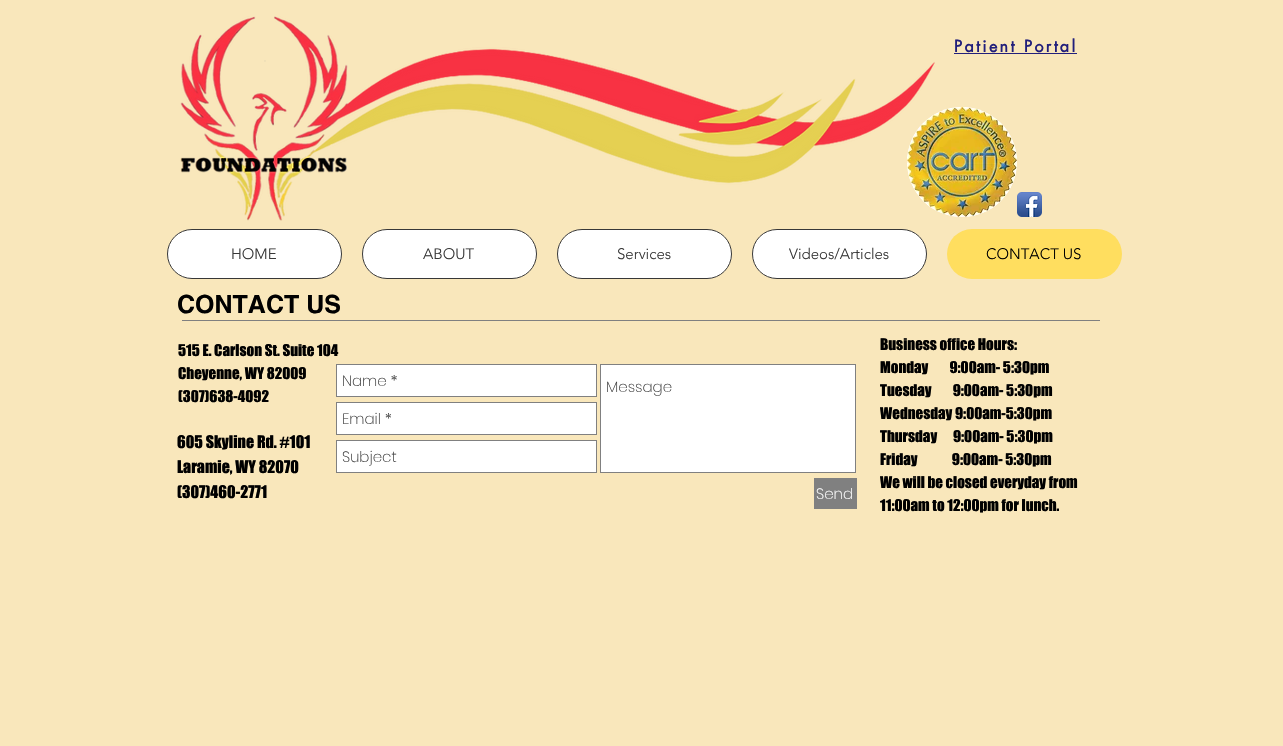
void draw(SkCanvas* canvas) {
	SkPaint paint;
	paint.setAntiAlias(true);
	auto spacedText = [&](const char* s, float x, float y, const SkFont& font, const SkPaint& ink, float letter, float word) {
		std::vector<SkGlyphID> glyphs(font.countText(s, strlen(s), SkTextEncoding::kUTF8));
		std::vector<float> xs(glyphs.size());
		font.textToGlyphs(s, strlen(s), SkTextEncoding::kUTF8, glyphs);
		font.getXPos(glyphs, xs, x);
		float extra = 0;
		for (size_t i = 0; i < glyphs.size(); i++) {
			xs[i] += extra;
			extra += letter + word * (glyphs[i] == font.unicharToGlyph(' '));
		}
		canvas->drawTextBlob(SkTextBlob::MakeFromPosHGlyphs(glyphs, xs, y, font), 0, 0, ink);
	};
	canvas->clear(0xfff9e7bb);
	paint.setColor(0xffffffff);
	canvas->drawCircle(962, 162, 55, paint);
	canvas->drawImageRect(SkImages::DeferredFromEncodedData(SkData::MakeFromFileName("img2.png")), SkRect::MakeXYWH(907, 107, 110, 110), SkSamplingOptions());
	canvas->drawImageRect(SkImages::DeferredFromEncodedData(SkData::MakeFromFileName("img1.png")), SkRect::MakeXYWH(180, 16, 755, 205), SkSamplingOptions());
	SkFont f1(fontMgr->matchFamilyStyle("futura", SkFontStyle::Bold()), 16);
	f1.setSubpixel(true);
	paint.setColor(0xff221f7b);
	spacedText("Patient Portal", 954, 52, f1, paint, 2.4, 0);
	canvas->drawRect(SkRect::MakeXYWH(954, 53, 123, 1), paint);
	canvas->drawImageRect(SkImages::DeferredFromEncodedData(SkData::MakeFromFileName("img3.png")), SkRect::MakeXYWH(1017, 192, 25, 25), SkSamplingOptions());
	paint.setColor(0xffffffff);
	canvas->drawRoundRect(SkRect::MakeXYWH(167.5, 229.5, 174, 49), 24.5, 24.5, paint);
	paint.setStroke(true);
	paint.setStrokeWidth(1);
	paint.setColor(0xff383838);
	canvas->drawRoundRect(SkRect::MakeXYWH(167.5, 229.5, 174, 49), 24.5, 24.5, paint);
	SkFont f2(fontMgr->matchFamilyStyle("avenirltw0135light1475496", SkFontStyle(300, SkFontStyle::kNormal_Width, SkFontStyle::kUpright_Slant)), 15);
	f2.setSubpixel(true);
	paint.setStroke(false);
	canvas->drawString("HOME", 231, 259, f2, paint);
	paint.setColor(0xffffffff);
	canvas->drawRoundRect(SkRect::MakeXYWH(362.5, 229.5, 174, 49), 24.5, 24.5, paint);
	paint.setStroke(true);
	paint.setColor(0xff383838);
	canvas->drawRoundRect(SkRect::MakeXYWH(362.5, 229.5, 174, 49), 24.5, 24.5, paint);
	paint.setStroke(false);
	canvas->drawString("ABOUT", 423, 259, f2, paint);
	paint.setColor(0xffffffff);
	canvas->drawRoundRect(SkRect::MakeXYWH(557.5, 229.5, 174, 49), 24.5, 24.5, paint);
	paint.setStroke(true);
	paint.setColor(0xff383838);
	canvas->drawRoundRect(SkRect::MakeXYWH(557.5, 229.5, 174, 49), 24.5, 24.5, paint);
	paint.setStroke(false);
	canvas->drawString("Services", 617, 259, f2, paint);
	paint.setColor(0xffffffff);
	canvas->drawRoundRect(SkRect::MakeXYWH(752.5, 229.5, 174, 49), 24.5, 24.5, paint);
	paint.setStroke(true);
	paint.setColor(0xff383838);
	canvas->drawRoundRect(SkRect::MakeXYWH(752.5, 229.5, 174, 49), 24.5, 24.5, paint);
	paint.setStroke(false);
	canvas->drawString("Videos/Articles", 789, 259, f2, paint);
	paint.setColor(0xffffde5f);
	canvas->drawRoundRect(SkRect::MakeXYWH(947, 229, 175, 50), 25, 25, paint);
	paint.setColor(0xff000000);
	canvas->drawString("CONTACT US", 986, 259, f2, paint);
	SkFont f3(fontMgr->matchFamilyStyle("helvetica", SkFontStyle::Bold()), 25);
	f3.setSubpixel(true);
	canvas->drawString("CONTACT US", 177, 313, f3, paint);
	paint.setColor(0xff808080);
	canvas->drawRect(SkRect::MakeXYWH(182, 320, 918, 1), paint);
	SkFont f4(fontMgr->matchFamilyStyle("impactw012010", SkFontStyle::Normal()), 15);
	f4.setSubpixel(true);
	paint.setColor(0xff000000);
	canvas->drawString("515 E. Carlson St. Suite 104", 178, 356, f4, paint);
	canvas->drawString("Cheyenne, WY 82009", 178, 379, f4, paint);
	canvas->drawString("(307)638-4092", 178, 402, f4, paint);
	paint.setColor(0xffffffff);
	canvas->drawRect(SkRect::MakeXYWH(336.5, 364.5, 260, 32), paint);
	paint.setStroke(true);
	paint.setColor(0xff808080);
	canvas->drawRect(SkRect::MakeXYWH(336.5, 364.5, 260, 32), paint);
	SkFont f5(fontMgr->matchFamilyStyle("Poppins", SkFontStyle(200, SkFontStyle::kNormal_Width, SkFontStyle::kUpright_Slant)), 15);
	f5.setSubpixel(true);
	paint.setStroke(false);
	paint.setColor(0xff404040);
	canvas->drawString("Name *", 342, 386, f5, paint);
	paint.setColor(0xffffffff);
	canvas->drawRect(SkRect::MakeXYWH(600.5, 364.5, 255, 108), paint);
	paint.setStroke(true);
	paint.setColor(0xff808080);
	canvas->drawRect(SkRect::MakeXYWH(600.5, 364.5, 255, 108), paint);
	paint.setStroke(false);
	paint.setColor(0xff404040);
	canvas->drawString("Message", 606, 392, f5, paint);
	paint.setColor(0xffffffff);
	canvas->drawRect(SkRect::MakeXYWH(336.5, 402.5, 260, 32), paint);
	paint.setStroke(true);
	paint.setColor(0xff808080);
	canvas->drawRect(SkRect::MakeXYWH(336.5, 402.5, 260, 32), paint);
	paint.setStroke(false);
	paint.setColor(0xff404040);
	canvas->drawString("Email *", 342, 424, f5, paint);
	paint.setColor(0xffffffff);
	canvas->drawRect(SkRect::MakeXYWH(336.5, 440.5, 260, 32), paint);
	paint.setStroke(true);
	paint.setColor(0xff808080);
	canvas->drawRect(SkRect::MakeXYWH(336.5, 440.5, 260, 32), paint);
	paint.setStroke(false);
	paint.setColor(0xff404040);
	canvas->drawString("Subject", 342, 462, f5, paint);
	paint.setColor(0xff808080);
	canvas->drawRect(SkRect::MakeXYWH(814, 478, 43, 31), paint);
	paint.setColor(0xffffffff);
	canvas->drawString("Send", 816, 499, f5, paint);
	paint.setColor(0xff000000);
	canvas->drawString("Business office Hours:", 880, 350, f4, paint);
	canvas->drawString("Monday        9:00am- 5:30pm", 880, 373, f4, paint);
	canvas->drawString("Tuesday        9:00am- 5:30pm", 880, 396, f4, paint);
	canvas->drawString("Wednesday 9:00am-5:30pm", 880, 419, f4, paint);
	canvas->drawString("Thursday      9:00am- 5:30pm", 880, 442, f4, paint);
	canvas->drawString("Friday             9:00am- 5:30pm", 880, 465, f4, paint);
	canvas->drawString("We will be closed everyday from", 880, 488, f4, paint);
	canvas->drawString("11:00am to 12:00pm for lunch.", 880, 511, f4, paint);
	SkFont f6(fontMgr->matchFamilyStyle("impactw012010", SkFontStyle::Normal()), 16);
	f6.setSubpixel(true);
	canvas->drawString("605 Skyline Rd. #101", 177, 448, f6, paint);
	canvas->drawString("Laramie, WY 82070", 177, 473, f6, paint);
	canvas->drawString("(307)460-2771", 177, 498, f6, paint);
}
